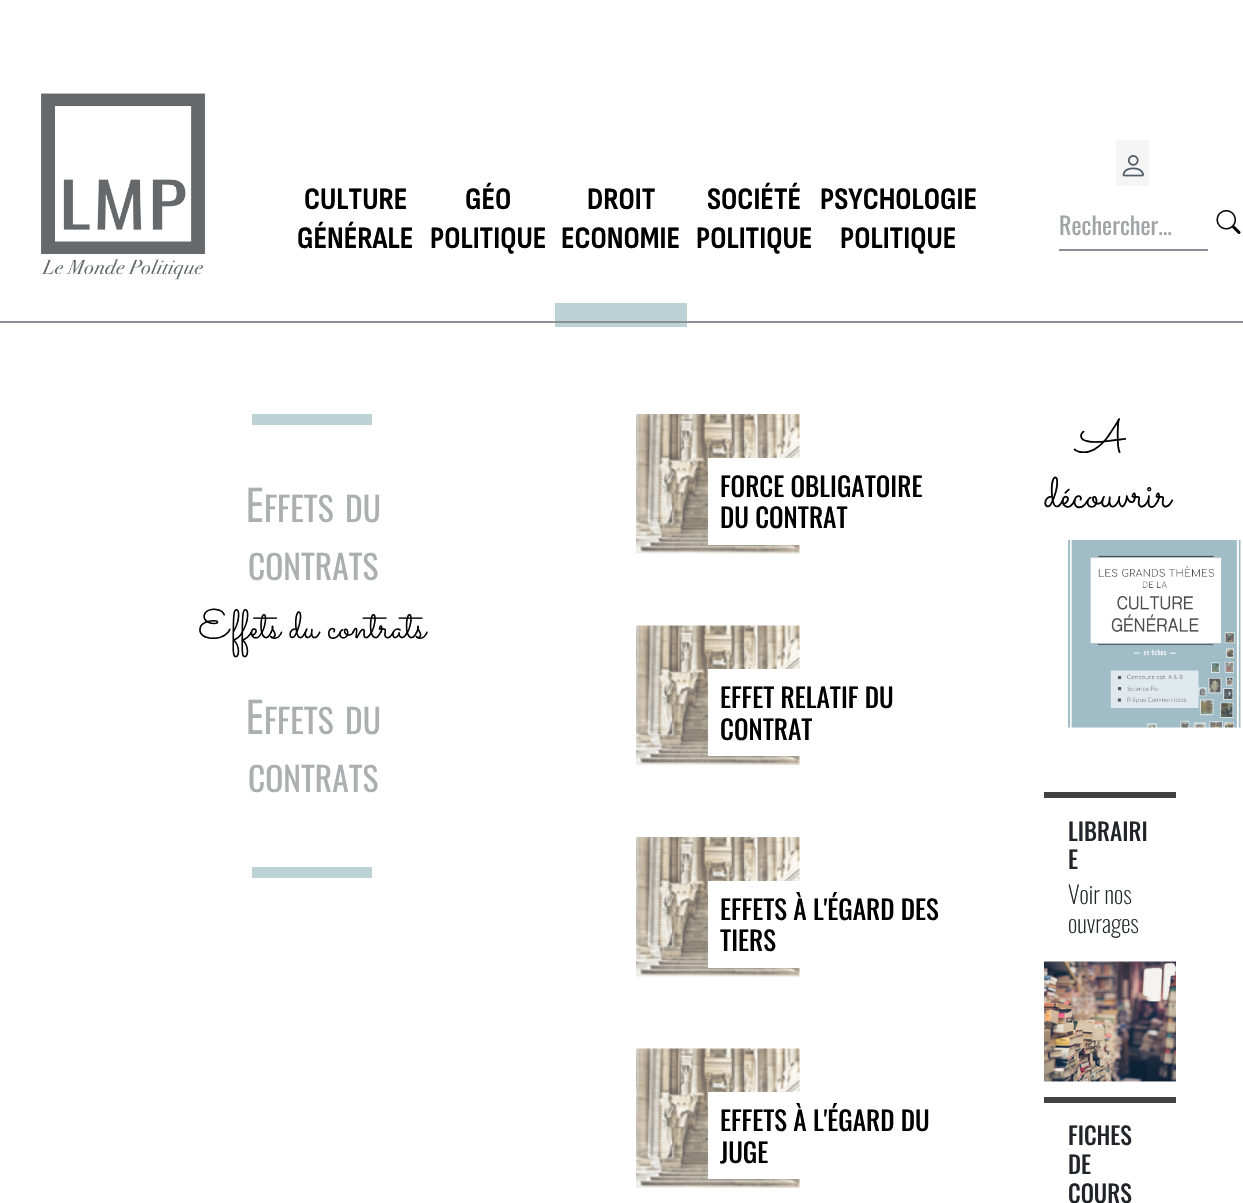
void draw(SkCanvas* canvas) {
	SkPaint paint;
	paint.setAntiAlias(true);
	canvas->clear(0xffffffff);
	canvas->drawImageRect(SkImages::DeferredFromEncodedData(SkData::MakeFromFileName("img1.png")), SkRect::MakeXYWH(41, 93, 165, 187), SkSamplingOptions());
	SkFont f1(fontMgr->matchFamilyStyle("Sofia Sans Condensed", SkFontStyle::Bold()), 31.25);
	f1.setSubpixel(true);
	paint.setColor(0xff000000);
	canvas->drawString("CULTURE", 304, 209, f1, paint);
	canvas->drawString("GÉNÉRALE", 297, 248, f1, paint);
	canvas->drawString("GÉO", 465, 209, f1, paint);
	canvas->drawString("POLITIQUE", 430, 248, f1, paint);
	canvas->drawString("DROIT", 587, 209, f1, paint);
	canvas->drawString("ECONOMIE", 561, 248, f1, paint);
	paint.setColor(0xffbdd2d4);
	canvas->drawRect(SkRect::MakeXYWH(555, 303, 132, 24), paint);
	paint.setColor(0xff000000);
	canvas->drawString("SOCIÉTÉ", 707, 209, f1, paint);
	canvas->drawString("POLITIQUE", 696, 248, f1, paint);
	canvas->drawString("PSYCHOLOGIE", 820, 209, f1, paint);
	canvas->drawString("POLITIQUE", 840, 248, f1, paint);
	paint.setColor(0xfff6f5f5);
	canvas->drawRect(SkRect::MakeXYWH(1116, 140, 33, 46), paint);
	canvas->drawImageRect(SkImages::DeferredFromEncodedData(SkData::MakeFromFileName("img2.png")), SkRect::MakeXYWH(1122, 155, 22, 22), SkSamplingOptions());
	paint.setColor(0xff888f96);
	canvas->drawRect(SkRect::MakeXYWH(1059, 249, 149, 2), paint);
	SkFont f2(fontMgr->matchFamilyStyle("Oswald", SkFontStyle::Normal()), 24);
	f2.setSubpixel(true);
	paint.setColor(0xffa2a3a5);
	canvas->drawString("Rechercher...", 1059, 235, f2, paint);
	canvas->drawImageRect(SkImages::DeferredFromEncodedData(SkData::MakeFromFileName("img3.png")), SkRect::MakeXYWH(1216, 210, 25, 24), SkSamplingOptions());
	paint.setColor(0xff888f96);
	canvas->drawRect(SkRect::MakeXYWH(0, 321, 1243, 2), paint);
	paint.setColor(0xffbdd2d4);
	canvas->drawRect(SkRect::MakeXYWH(252, 414, 120, 11), paint);
	SkFont f3(fontMgr->matchFamilyStyle("Noto Sans", SkFontStyle::Normal()), 48);
	f3.setSubpixel(true);
	paint.setColor(0xffacaeaf);
	canvas->drawString("E", 245, 522, f3, paint);
	SkFont f4(fontMgr->matchFamilyStyle("Oswald", SkFontStyle::Normal()), 33.5);
	f4.setSubpixel(true);
	canvas->drawString("FFETS", 264, 522, f4, paint);
	canvas->drawString("DU", 345, 522, f4, paint);
	canvas->drawString("CONTRATS", 248, 580, f4, paint);
	SkFont f5(fontMgr->matchFamilyStyle("Sacramento", SkFontStyle::Normal()), 40.75);
	f5.setSubpixel(true);
	paint.setColor(0xff000000);
	canvas->drawString("Effets du contrats", 198, 638, f5, paint);
	paint.setColor(0xffacaeaf);
	canvas->drawString("E", 245, 734, f3, paint);
	canvas->drawString("FFETS", 264, 734, f4, paint);
	canvas->drawString("DU", 345, 734, f4, paint);
	canvas->drawString("CONTRATS", 248, 792, f4, paint);
	paint.setColor(0xffbdd2d4);
	canvas->drawRect(SkRect::MakeXYWH(252, 867, 120, 11), paint);
	canvas->drawImageRect(SkImages::DeferredFromEncodedData(SkData::MakeFromFileName("img4.png")), SkRect::MakeXYWH(636, 414, 164, 140), SkSamplingOptions());
	paint.setColor(0xffffffff);
	canvas->drawRect(SkRect::MakeXYWH(708, 458, 92, 87), paint);
	SkFont f6(fontMgr->matchFamilyStyle("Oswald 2", SkFontStyle::Normal()), 26.5);
	f6.setSubpixel(true);
	paint.setColor(0xff000000);
	canvas->drawString("FORCE OBLIGATOIRE", 720, 497, f6, paint);
	canvas->drawString("DU CONTRAT", 720, 528, f6, paint);
	canvas->drawImageRect(SkImages::DeferredFromEncodedData(SkData::MakeFromFileName("img5.png")), SkRect::MakeXYWH(636, 625, 164, 140), SkSamplingOptions());
	paint.setColor(0xffffffff);
	canvas->drawRect(SkRect::MakeXYWH(708, 669, 92, 87), paint);
	paint.setColor(0xff000000);
	canvas->drawString("EFFET RELATIF DU", 720, 708, f6, paint);
	canvas->drawString("CONTRAT", 720, 740, f6, paint);
	canvas->drawImageRect(SkImages::DeferredFromEncodedData(SkData::MakeFromFileName("img4.png")), SkRect::MakeXYWH(636, 837, 164, 140), SkSamplingOptions());
	paint.setColor(0xffffffff);
	canvas->drawRect(SkRect::MakeXYWH(708, 881, 92, 87), paint);
	paint.setColor(0xff000000);
	canvas->drawString("EFFETS À L'ÉGARD DES", 720, 920, f6, paint);
	canvas->drawString("TIERS", 720, 951, f6, paint);
	canvas->drawImageRect(SkImages::DeferredFromEncodedData(SkData::MakeFromFileName("img5.png")), SkRect::MakeXYWH(636, 1048, 164, 140), SkSamplingOptions());
	paint.setColor(0xffffffff);
	canvas->drawRect(SkRect::MakeXYWH(708, 1092, 92, 87), paint);
	paint.setColor(0xff000000);
	canvas->drawString("EFFETS À L'ÉGARD DU", 720, 1131, f6, paint);
	canvas->drawString("JUGE", 720, 1163, f6, paint);
	SkFont f7(fontMgr->matchFamilyStyle("Sacramento", SkFontStyle::Normal()), 46.5);
	f7.setSubpixel(true);
	canvas->drawString("A", 1076, 452, f7, paint);
	canvas->drawString("découvrir", 1044, 507, f7, paint);
	canvas->drawImageRect(SkImages::DeferredFromEncodedData(SkData::MakeFromFileName("img6.png")), SkRect::MakeXYWH(1068, 540, 173, 188), SkSamplingOptions());
	paint.setColor(0xff424242);
	canvas->drawRect(SkRect::MakeXYWH(1044, 792, 132, 6), paint);
	SkFont f8(fontMgr->matchFamilyStyle("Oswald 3", SkFontStyle::Normal()), 24);
	f8.setSubpixel(true);
	paint.setColor(0xff212529);
	canvas->drawString("LIBRAIRI", 1068, 841, f8, paint);
	canvas->drawString("E", 1068, 869, f8, paint);
	SkFont f9(fontMgr->matchFamilyStyle("Oswald", SkFontStyle(200, SkFontStyle::kNormal_Width, SkFontStyle::kUpright_Slant)), 24);
	f9.setSubpixel(true);
	canvas->drawString("Voir nos", 1068, 904, f9, paint);
	canvas->drawString("ouvrages", 1068, 933, f9, paint);
	canvas->drawImageRect(SkImages::DeferredFromEncodedData(SkData::MakeFromFileName("img7.png")), SkRect::MakeXYWH(1044, 961, 132, 121), SkSamplingOptions());
	paint.setColor(0xff424242);
	canvas->drawRect(SkRect::MakeXYWH(1044, 1097, 132, 6), paint);
	paint.setColor(0xff212529);
	canvas->drawString("FICHES", 1068, 1145, f8, paint);
	canvas->drawString("DE", 1068, 1174, f8, paint);
	canvas->drawString("COURS", 1068, 1203, f8, paint);
}
